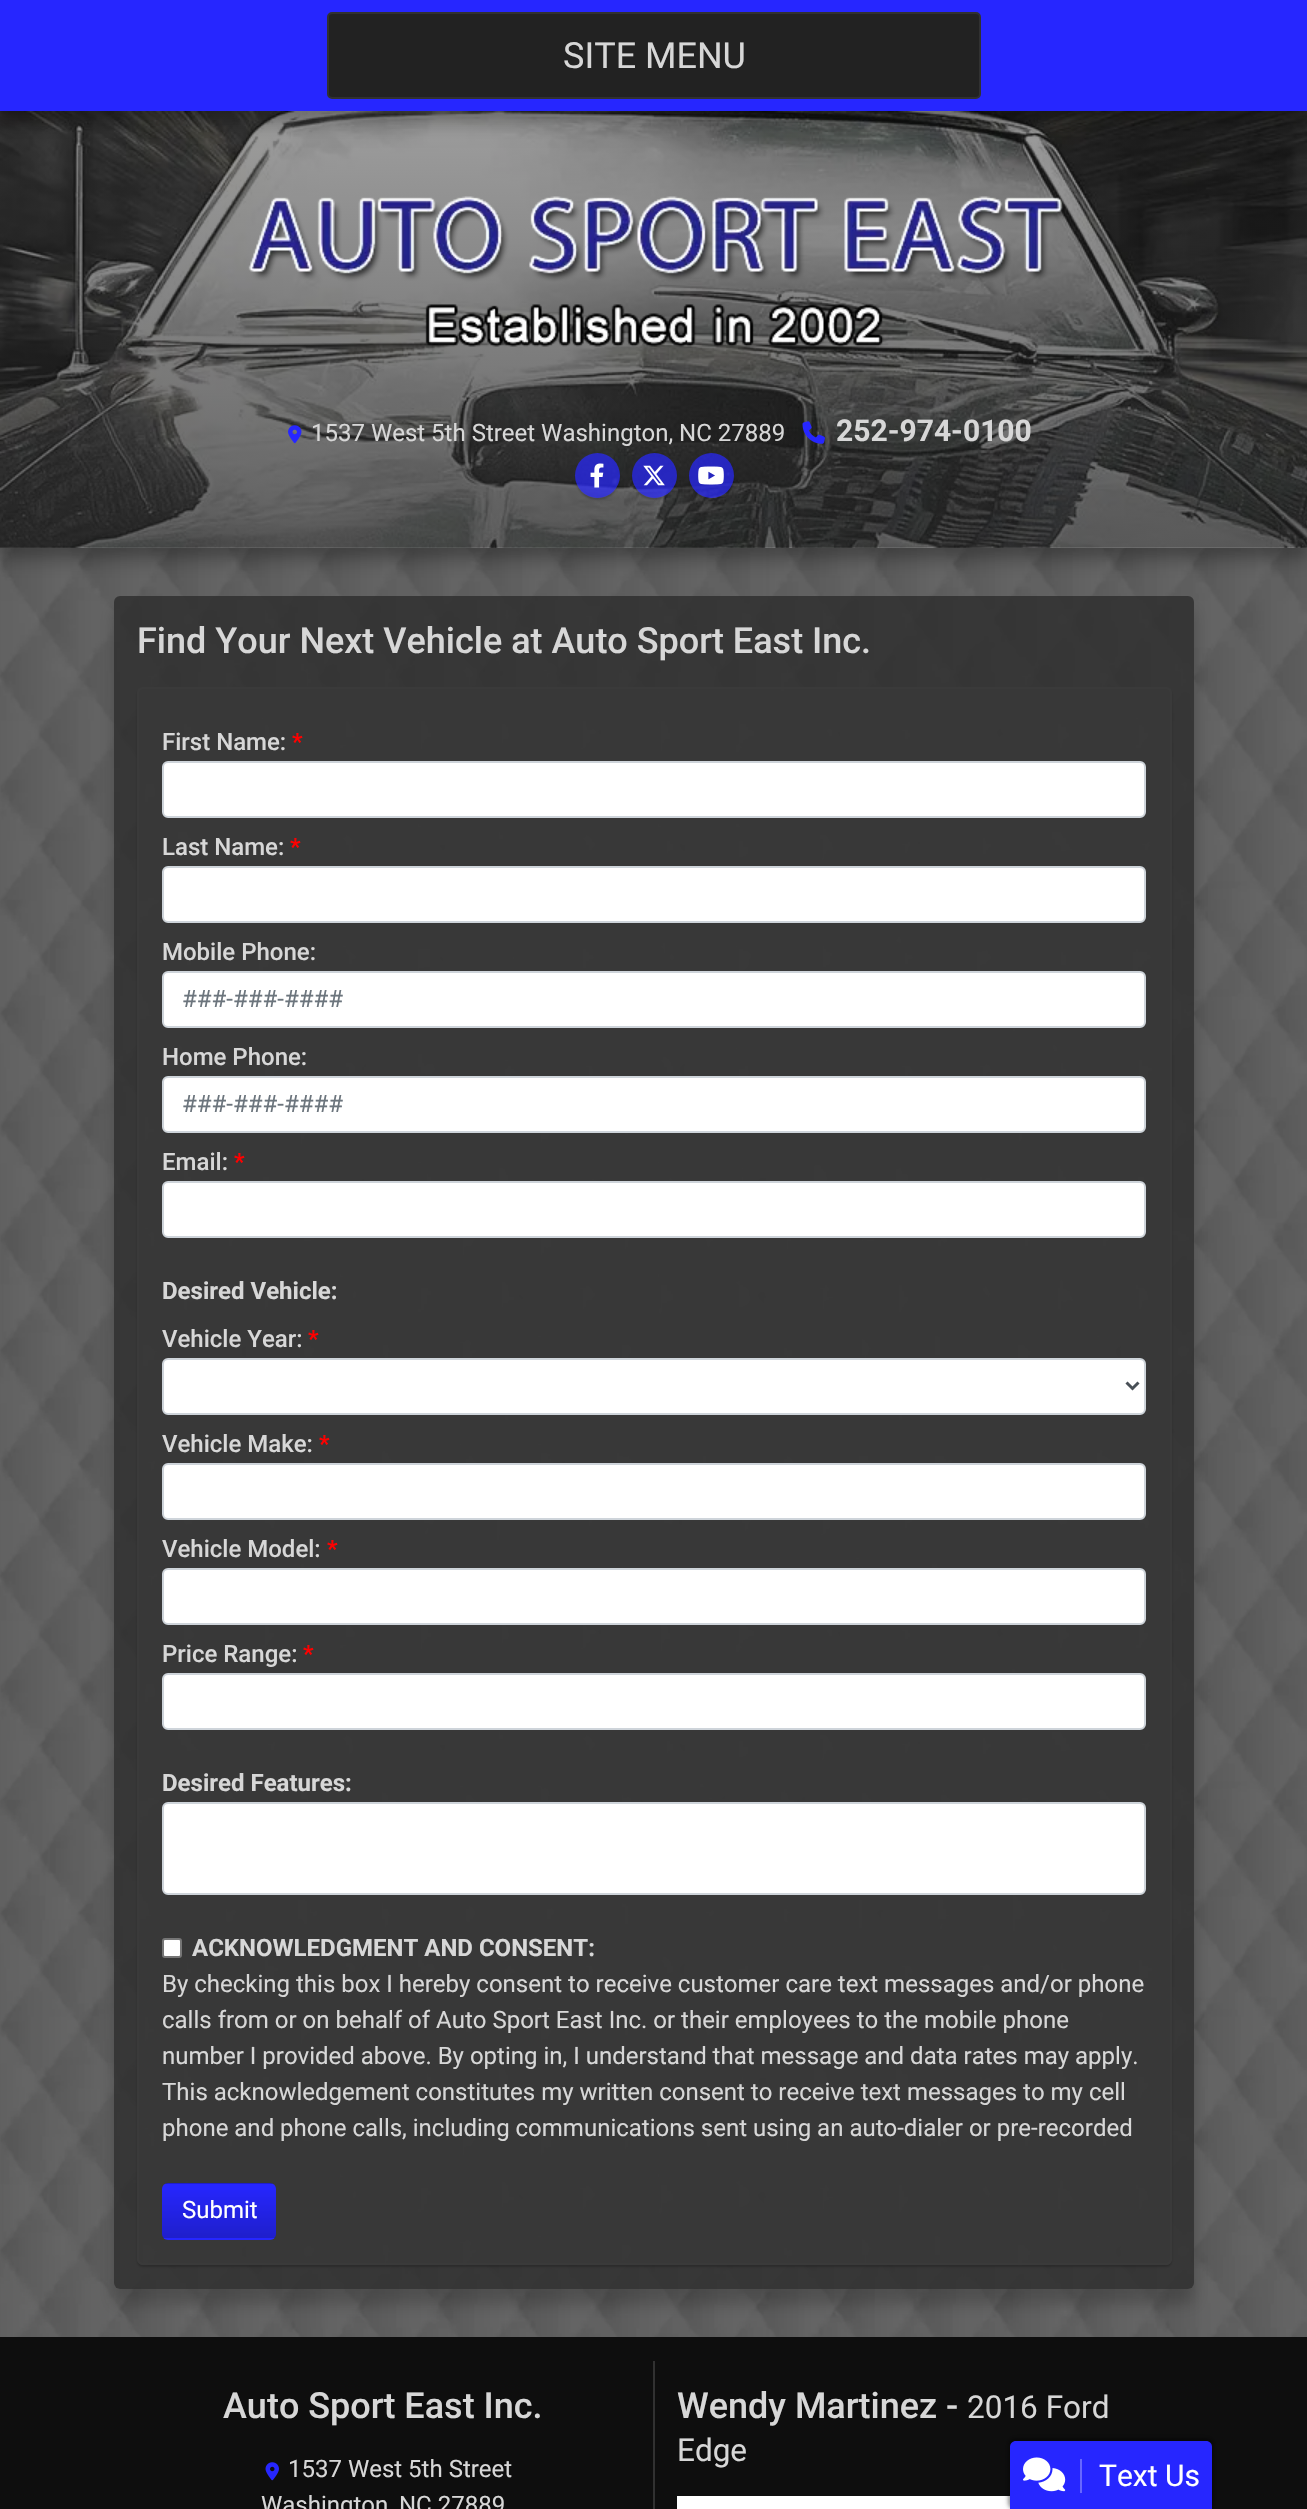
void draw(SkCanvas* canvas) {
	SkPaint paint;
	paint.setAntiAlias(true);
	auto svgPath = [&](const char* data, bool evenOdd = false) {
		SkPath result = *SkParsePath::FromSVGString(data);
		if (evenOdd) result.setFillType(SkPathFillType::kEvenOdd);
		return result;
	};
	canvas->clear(0xffffffff);
	canvas->drawImageRect(SkImages::DeferredFromEncodedData(SkData::MakeFromFileName("img1.png")), SkRect::MakeXYWH(0, 547, 1307, 1790), SkSamplingOptions());
	paint.setColor(0x1a000000);
	paint.setMaskFilter(SkMaskFilter::MakeBlur(kNormal_SkBlurStyle, 4));
	canvas->drawRect(SkRect::MakeXYWH(0, 119, 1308, 436), paint);
	paint.setMaskFilter(nullptr);
	paint.setColor(0x33000000);
	paint.setMaskFilter(SkMaskFilter::MakeBlur(kNormal_SkBlurStyle, 7.5));
	canvas->drawRect(SkRect::MakeXYWH(0, 126, 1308, 437), paint);
	paint.setMaskFilter(nullptr);
	canvas->drawImageRect(SkImages::DeferredFromEncodedData(SkData::MakeFromFileName("img2.png")), SkRect::MakeXYWH(0, 111, 1307, 437), SkSamplingOptions());
	paint.setColor(0x1a000000);
	paint.setMaskFilter(SkMaskFilter::MakeBlur(kNormal_SkBlurStyle, 4));
	canvas->drawRect(SkRect::MakeXYWH(0, 8, 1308, 111), paint);
	paint.setMaskFilter(nullptr);
	paint.setColor(0x33000000);
	paint.setMaskFilter(SkMaskFilter::MakeBlur(kNormal_SkBlurStyle, 7.5));
	canvas->drawRect(SkRect::MakeXYWH(0, 15, 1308, 111), paint);
	paint.setMaskFilter(nullptr);
	paint.setColor(0xff2626ff);
	canvas->drawRect(SkRect::MakeXYWH(0, 0, 1307, 111), paint);
	paint.setColor(0xff222222);
	canvas->drawRoundRect(SkRect::MakeXYWH(328, 13, 652, 85), 4, 4, paint);
	paint.setStroke(true);
	paint.setStrokeWidth(2);
	paint.setColor(0xff313131);
	canvas->drawRoundRect(SkRect::MakeXYWH(328, 13, 652, 85), 4, 4, paint);
	SkFont f1(fontMgr->matchFamilyStyle("Roboto", SkFontStyle::Normal()), 36);
	f1.setSubpixel(true);
	paint.setStroke(false);
	paint.setColor(0xffd7d7d7);
	canvas->drawString("SITE MENU", 563, 68, f1, paint);
	canvas->drawImageRect(SkImages::DeferredFromEncodedData(SkData::MakeFromFileName("img3.png")), SkRect::MakeXYWH(248, 196, 817, 151), SkSamplingOptions());
	canvas->drawImageRect(SkImages::DeferredFromEncodedData(SkData::MakeFromFileName("img4.png")), SkRect::MakeXYWH(288, 425, 14, 19), SkSamplingOptions());
	SkFont f2(fontMgr->matchFamilyStyle("Roboto", SkFontStyle::Normal()), 24);
	f2.setSubpixel(true);
	canvas->drawString("1537 West 5th Street Washington, NC 27889", 311, 441, f2, paint);
	canvas->drawImageRect(SkImages::DeferredFromEncodedData(SkData::MakeFromFileName("img5.png")), SkRect::MakeXYWH(802, 421, 23, 23), SkSamplingOptions());
	SkFont f3(fontMgr->matchFamilyStyle("Roboto", SkFontStyle::Bold()), 30);
	f3.setSubpixel(true);
	canvas->drawString("252-974-0100", 836, 441, f3, paint);
	canvas->save();
	canvas->clipPath(svgPath("M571 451H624V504H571ZM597.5 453C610 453 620 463 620 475.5C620 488 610 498 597.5 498C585 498 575 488 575 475.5C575 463 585 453 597.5 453Z", true), true);
	paint.setColor(0x33000000);
	paint.setMaskFilter(SkMaskFilter::MakeBlur(kNormal_SkBlurStyle, 1));
	canvas->drawRoundRect(SkRect::MakeXYWH(575, 455, 45, 45), 22.5, 22.5, paint);
	paint.setMaskFilter(nullptr);
	canvas->restore();
	paint.setColor(0xb32626ff);
	canvas->drawCircle(597.5, 475.5, 22.5, paint);
	canvas->drawImageRect(SkImages::DeferredFromEncodedData(SkData::MakeFromFileName("img6.png")), SkRect::MakeXYWH(590, 463, 14, 25), SkSamplingOptions());
	canvas->save();
	canvas->clipPath(svgPath("M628 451H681V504H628ZM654.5 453C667 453 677 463 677 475.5C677 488 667 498 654.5 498C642 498 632 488 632 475.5C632 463 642 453 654.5 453Z", true), true);
	paint.setColor(0x33000000);
	paint.setMaskFilter(SkMaskFilter::MakeBlur(kNormal_SkBlurStyle, 1));
	canvas->drawRoundRect(SkRect::MakeXYWH(632, 455, 45, 45), 22.5, 22.5, paint);
	paint.setMaskFilter(nullptr);
	canvas->restore();
	paint.setColor(0xb32626ff);
	canvas->drawCircle(654.5, 475.5, 22.5, paint);
	canvas->drawImageRect(SkImages::DeferredFromEncodedData(SkData::MakeFromFileName("img7.png")), SkRect::MakeXYWH(643, 465, 22, 21), SkSamplingOptions());
	canvas->save();
	canvas->clipPath(svgPath("M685 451H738V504H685ZM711.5 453C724 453 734 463 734 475.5C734 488 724 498 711.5 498C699 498 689 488 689 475.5C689 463 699 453 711.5 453Z", true), true);
	paint.setColor(0x33000000);
	paint.setMaskFilter(SkMaskFilter::MakeBlur(kNormal_SkBlurStyle, 1));
	canvas->drawRoundRect(SkRect::MakeXYWH(689, 455, 45, 45), 22.5, 22.5, paint);
	paint.setMaskFilter(nullptr);
	canvas->restore();
	paint.setColor(0xb32626ff);
	canvas->drawCircle(711.5, 475.5, 22.5, paint);
	canvas->drawImageRect(SkImages::DeferredFromEncodedData(SkData::MakeFromFileName("img8.png")), SkRect::MakeXYWH(698, 466, 26, 19), SkSamplingOptions());
	canvas->save();
	canvas->clipPath(svgPath("M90 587H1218V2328H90ZM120 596H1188C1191.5 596 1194 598.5 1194 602V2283C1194 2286.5 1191.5 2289 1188 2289H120C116.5 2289 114 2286.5 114 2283V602C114 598.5 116.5 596 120 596Z", true), true);
	paint.setColor(0x33000000);
	paint.setMaskFilter(SkMaskFilter::MakeBlur(kNormal_SkBlurStyle, 7.5));
	canvas->drawRoundRect(SkRect::MakeXYWH(114, 611, 1080, 1693), 6, 6, paint);
	paint.setMaskFilter(nullptr);
	canvas->restore();
	paint.setColor(0xcc2c2c2c);
	canvas->drawRoundRect(SkRect::MakeXYWH(114, 596, 1080, 1693), 6, 6, paint);
	SkFont f4(fontMgr->matchFamilyStyle("Roboto", SkFontStyle(500, SkFontStyle::kNormal_Width, SkFontStyle::kUpright_Slant)), 36);
	f4.setSubpixel(true);
	paint.setColor(0xffd7d7d7);
	canvas->drawString("Find Your Next Vehicle at Auto Sport East Inc.", 137, 653, f4, paint);
	canvas->save();
	canvas->clipPath(svgPath("M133 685H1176V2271H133ZM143 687H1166C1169.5 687 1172 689.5 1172 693V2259C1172 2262.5 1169.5 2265 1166 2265H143C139.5 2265 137 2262.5 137 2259V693C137 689.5 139.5 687 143 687Z", true), true);
	paint.setColor(0x33000000);
	paint.setMaskFilter(SkMaskFilter::MakeBlur(kNormal_SkBlurStyle, 1));
	canvas->drawRoundRect(SkRect::MakeXYWH(137, 689, 1035, 1578), 6, 6, paint);
	paint.setMaskFilter(nullptr);
	canvas->restore();
	paint.setColor(0x99393939);
	canvas->drawRoundRect(SkRect::MakeXYWH(138, 688, 1033, 1576), 5, 5, paint);
	paint.setStroke(true);
	paint.setColor(0xff3a3a3a);
	canvas->drawRoundRect(SkRect::MakeXYWH(138, 688, 1033, 1576), 5, 5, paint);
	SkFont f5(fontMgr->matchFamilyStyle("Roboto", SkFontStyle(500, SkFontStyle::kNormal_Width, SkFontStyle::kUpright_Slant)), 24);
	f5.setSubpixel(true);
	paint.setStroke(false);
	paint.setColor(0xffd7d7d7);
	canvas->drawString("First Name:", 162, 750, f5, paint);
	paint.setColor(0xffff0000);
	canvas->drawString("*", 292, 750, f5, paint);
	paint.setColor(0xffffffff);
	canvas->drawRoundRect(SkRect::MakeXYWH(163, 762, 982, 55), 5, 5, paint);
	paint.setStroke(true);
	paint.setColor(0xffced4da);
	canvas->drawRoundRect(SkRect::MakeXYWH(163, 762, 982, 55), 5, 5, paint);
	paint.setStroke(false);
	paint.setColor(0xffd7d7d7);
	canvas->drawString("Last Name:", 162, 855, f5, paint);
	paint.setColor(0xffff0000);
	canvas->drawString("*", 290, 855, f5, paint);
	paint.setColor(0xffffffff);
	canvas->drawRoundRect(SkRect::MakeXYWH(163, 867, 982, 55), 5, 5, paint);
	paint.setStroke(true);
	paint.setColor(0xffced4da);
	canvas->drawRoundRect(SkRect::MakeXYWH(163, 867, 982, 55), 5, 5, paint);
	paint.setStroke(false);
	paint.setColor(0xffd7d7d7);
	canvas->drawString("Mobile Phone:", 162, 960, f5, paint);
	paint.setColor(0xffffffff);
	canvas->drawRoundRect(SkRect::MakeXYWH(163, 972, 982, 55), 5, 5, paint);
	paint.setStroke(true);
	paint.setColor(0xffced4da);
	canvas->drawRoundRect(SkRect::MakeXYWH(163, 972, 982, 55), 5, 5, paint);
	paint.setStroke(false);
	paint.setColor(0xff6c757d);
	canvas->drawString("###-###-####", 182, 1007, f2, paint);
	paint.setColor(0xffd7d7d7);
	canvas->drawString("Home Phone:", 162, 1065, f5, paint);
	paint.setColor(0xffffffff);
	canvas->drawRoundRect(SkRect::MakeXYWH(163, 1077, 982, 55), 5, 5, paint);
	paint.setStroke(true);
	paint.setColor(0xffced4da);
	canvas->drawRoundRect(SkRect::MakeXYWH(163, 1077, 982, 55), 5, 5, paint);
	paint.setStroke(false);
	paint.setColor(0xff6c757d);
	canvas->drawString("###-###-####", 182, 1112, f2, paint);
	paint.setColor(0xffd7d7d7);
	canvas->drawString("Email:", 162, 1170, f5, paint);
	paint.setColor(0xffff0000);
	canvas->drawString("*", 234, 1170, f5, paint);
	paint.setColor(0xffffffff);
	canvas->drawRoundRect(SkRect::MakeXYWH(163, 1182, 982, 55), 5, 5, paint);
	paint.setStroke(true);
	paint.setColor(0xffced4da);
	canvas->drawRoundRect(SkRect::MakeXYWH(163, 1182, 982, 55), 5, 5, paint);
	SkFont f6(fontMgr->matchFamilyStyle("Roboto", SkFontStyle::Bold()), 24);
	f6.setSubpixel(true);
	paint.setStroke(false);
	paint.setColor(0xffd7d7d7);
	canvas->drawString("Desired Vehicle:", 162, 1299, f6, paint);
	canvas->drawString("Vehicle Year:", 162, 1347, f5, paint);
	paint.setColor(0xffff0000);
	canvas->drawString("*", 308, 1347, f5, paint);
	paint.setColor(0xffffffff);
	canvas->drawRoundRect(SkRect::MakeXYWH(163, 1359, 982, 55), 5, 5, paint);
	paint.setStroke(true);
	paint.setColor(0xffced4da);
	canvas->drawRoundRect(SkRect::MakeXYWH(163, 1359, 982, 55), 5, 5, paint);
	paint.setStrokeWidth(3);
	paint.setColor(0xff495057);
	canvas->drawPath(svgPath("M1126.5 1382.5L1132.5 1388.5L1138.5 1382.5"), paint);
	paint.setStroke(false);
	paint.setColor(0xffd7d7d7);
	canvas->drawString("Vehicle Make:", 162, 1452, f5, paint);
	paint.setColor(0xffff0000);
	canvas->drawString("*", 319, 1452, f5, paint);
	paint.setColor(0xffffffff);
	canvas->drawRoundRect(SkRect::MakeXYWH(163, 1464, 982, 55), 5, 5, paint);
	paint.setStroke(true);
	paint.setStrokeWidth(2);
	paint.setColor(0xffced4da);
	canvas->drawRoundRect(SkRect::MakeXYWH(163, 1464, 982, 55), 5, 5, paint);
	paint.setStroke(false);
	paint.setColor(0xffd7d7d7);
	canvas->drawString("Vehicle Model:", 162, 1557, f5, paint);
	paint.setColor(0xffff0000);
	canvas->drawString("*", 327, 1557, f5, paint);
	paint.setColor(0xffffffff);
	canvas->drawRoundRect(SkRect::MakeXYWH(163, 1569, 982, 55), 5, 5, paint);
	paint.setStroke(true);
	paint.setColor(0xffced4da);
	canvas->drawRoundRect(SkRect::MakeXYWH(163, 1569, 982, 55), 5, 5, paint);
	paint.setStroke(false);
	paint.setColor(0xffd7d7d7);
	canvas->drawString("Price Range:", 162, 1662, f5, paint);
	paint.setColor(0xffff0000);
	canvas->drawString("*", 303, 1662, f5, paint);
	paint.setColor(0xffffffff);
	canvas->drawRoundRect(SkRect::MakeXYWH(163, 1674, 982, 55), 5, 5, paint);
	paint.setStroke(true);
	paint.setColor(0xffced4da);
	canvas->drawRoundRect(SkRect::MakeXYWH(163, 1674, 982, 55), 5, 5, paint);
	paint.setStroke(false);
	paint.setColor(0xffd7d7d7);
	canvas->drawString("Desired Features:", 162, 1791, f6, paint);
	paint.setColor(0xffffffff);
	canvas->drawRoundRect(SkRect::MakeXYWH(163, 1803, 982, 91), 5, 5, paint);
	paint.setStroke(true);
	paint.setColor(0xffced4da);
	canvas->drawRoundRect(SkRect::MakeXYWH(163, 1803, 982, 91), 5, 5, paint);
	paint.setStroke(false);
	paint.setColor(0xffffffff);
	canvas->drawRoundRect(SkRect::MakeXYWH(163, 1939, 18, 18), 2, 2, paint);
	paint.setStroke(true);
	paint.setColor(0xff767676);
	canvas->drawRoundRect(SkRect::MakeXYWH(163, 1939, 18, 18), 2, 2, paint);
	paint.setStroke(false);
	paint.setColor(0xffd7d7d7);
	canvas->drawString("ACKNOWLEDGMENT AND CONSENT:", 192, 1956, f6, paint);
	canvas->drawString("By checking this box I hereby consent to receive customer care text messages and/or phone", 162, 1992, f2, paint);
	canvas->drawString("calls from or on behalf of Auto Sport East Inc. or their employees to the mobile phone", 162, 2028, f2, paint);
	canvas->drawString("number I provided above. By opting in, I understand that message and data rates may apply.", 162, 2064, f2, paint);
	canvas->drawString("This acknowledgement constitutes my written consent to receive text messages to my cell", 162, 2100, f2, paint);
	canvas->drawString("phone and phone calls, including communications sent using an auto-dialer or pre-recorded", 162, 2136, f2, paint);
	paint.setColor(0xff2626ff);
	canvas->drawRoundRect(SkRect::MakeXYWH(162, 2183, 114, 57), 6, 6, paint);
	canvas->save();
	canvas->clipPath(svgPath("M168 2183H270C273.5 2183 276 2185.5 276 2189V2234C276 2237.5 273.5 2240 270 2240H168C164.5 2240 162 2237.5 162 2234V2189C162 2185.5 164.5 2183 168 2183Z"), true);
	{
		const SkColor colors[] = {0x00000000, 0x33000000};
		const float stops[] = {0, 1};
		const SkPoint ends[] = {{219, 2130}, {219, 2184}};
		paint.setShader(SkGradientShader::MakeLinear(ends, colors, stops, 2, SkTileMode::kClamp));
		paint.setAlpha(255);
	}
	canvas->drawRect(SkRect::MakeXYWH(162, 2183, 114, 1), paint);
	{
		const SkColor colors[] = {0x00000000, 0x33000000};
		const float stops[] = {0, 1};
		const SkPoint ends[] = {{219, 2184}, {219, 2238}};
		paint.setShader(SkGradientShader::MakeLinear(ends, colors, stops, 2, SkTileMode::kClamp));
		paint.setAlpha(255);
	}
	canvas->drawRect(SkRect::MakeXYWH(162, 2190, 114, 48), paint);
	canvas->restore();
	paint.setShader(nullptr);
	paint.setColor(0xffffffff);
	canvas->drawString("Submit", 182, 2218, f2, paint);
	paint.setColor(0xff0e0e0e);
	canvas->drawRect(SkRect::MakeXYWH(0, 2337, 1307, 172), paint);
	paint.setColor(0xff313131);
	canvas->drawRect(SkRect::MakeXYWH(653, 2361, 2, 148), paint);
	paint.setColor(0xffd7d7d7);
	canvas->drawString("Auto Sport East Inc.", 223, 2418, f4, paint);
	canvas->drawImageRect(SkImages::DeferredFromEncodedData(SkData::MakeFromFileName("img9.png")), SkRect::MakeXYWH(265, 2462, 14, 19), SkSamplingOptions());
	canvas->drawString("1537 West 5th Street", 288, 2477, f2, paint);
	canvas->drawString("Washington, NC 27889", 261, 2513, f2, paint);
	canvas->drawString("Wendy Martinez -", 677, 2418, f4, paint);
	SkFont f7(fontMgr->matchFamilyStyle("Roboto", SkFontStyle::Normal()), 31.5);
	f7.setSubpixel(true);
	canvas->drawString("2016 Ford", 967, 2418, f7, paint);
	canvas->drawString("Edge", 677, 2461, f7, paint);
	paint.setColor(0xffffffff);
	canvas->drawRect(SkRect::MakeXYWH(677, 2496, 333, 13), paint);
	paint.setColor(0x40000000);
	paint.setMaskFilter(SkMaskFilter::MakeBlur(kNormal_SkBlurStyle, 1.5));
	canvas->drawRoundRect(SkRect::MakeXYWH(1008, 2438, 206, 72), 8, 8, paint);
	paint.setMaskFilter(nullptr);
	paint.setColor(0x26000000);
	paint.setMaskFilter(SkMaskFilter::MakeBlur(kNormal_SkBlurStyle, 2));
	canvas->drawRoundRect(SkRect::MakeXYWH(1007, 2436, 208, 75), 9, 9, paint);
	paint.setMaskFilter(nullptr);
	paint.setColor(0xff2626ff);
	canvas->drawPath(svgPath("M1016 2441H1206C1209.5 2441 1212 2443.5 1212 2447V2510H1010V2447C1010 2443.5 1012.5 2441 1016 2441Z"), paint);
	paint.setColor(0xff6767ff);
	canvas->drawRect(SkRect::MakeXYWH(1080, 2459, 2, 34), paint);
	canvas->drawImageRect(SkImages::DeferredFromEncodedData(SkData::MakeFromFileName("img10.png")), SkRect::MakeXYWH(1023, 2457, 43, 35), SkSamplingOptions());
	SkFont f8(fontMgr->matchFamilyStyle("Roboto", SkFontStyle::Normal()), 30);
	f8.setSubpixel(true);
	paint.setColor(0xffffffff);
	canvas->drawString("Text Us", 1099, 2486, f8, paint);
}
